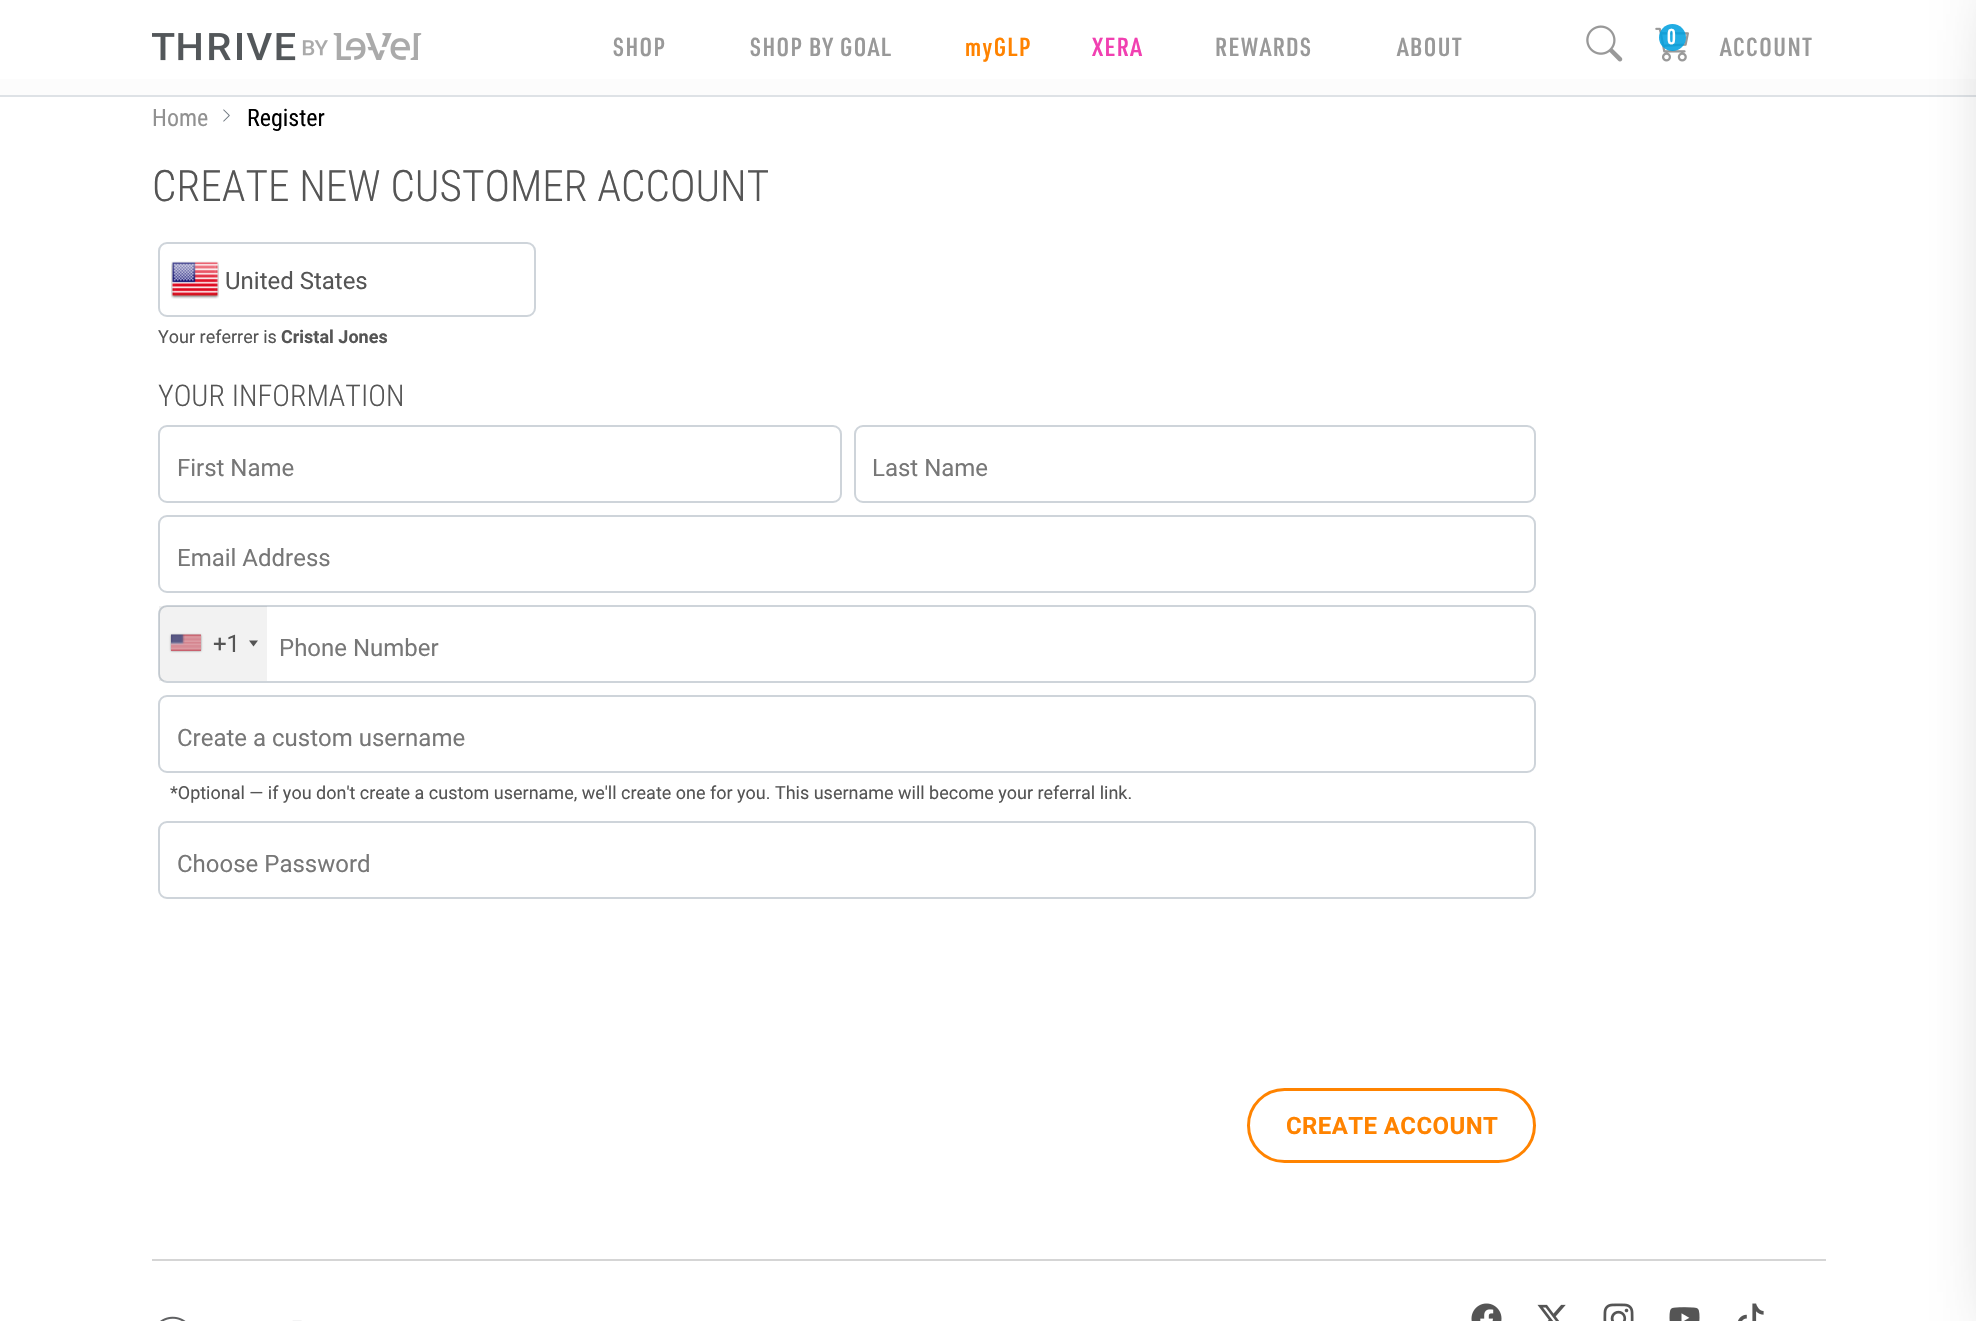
void draw(SkCanvas* canvas) {
	SkPaint paint;
	paint.setAntiAlias(true);
	auto spacedText = [&](const char* s, float x, float y, const SkFont& font, const SkPaint& ink, float letter, float word) {
		std::vector<SkGlyphID> glyphs(font.countText(s, strlen(s), SkTextEncoding::kUTF8));
		std::vector<float> xs(glyphs.size());
		font.textToGlyphs(s, strlen(s), SkTextEncoding::kUTF8, glyphs);
		font.getXPos(glyphs, xs, x);
		float extra = 0;
		for (size_t i = 0; i < glyphs.size(); i++) {
			xs[i] += extra;
			extra += letter + word * (glyphs[i] == font.unicharToGlyph(' '));
		}
		canvas->drawTextBlob(SkTextBlob::MakeFromPosHGlyphs(glyphs, xs, y, font), 0, 0, ink);
	};
	auto svgPath = [&](const char* data, bool evenOdd = false) {
		SkPath result = *SkParsePath::FromSVGString(data);
		if (evenOdd) result.setFillType(SkPathFillType::kEvenOdd);
		return result;
	};
	canvas->clear(0xffffffff);
	{
		const SkColor colors[] = {0xffffffff, 0xfffcfcfc};
		const float stops[] = {0, 1};
		const SkPoint ends[] = {{989, 0}, {989, 95}};
		paint.setShader(SkGradientShader::MakeLinear(ends, colors, stops, 2, SkTileMode::kClamp));
		paint.setAlpha(255);
	}
	canvas->drawRect(SkRect::MakeXYWH(0, 79, 1976, 16), paint);
	paint.setShader(nullptr);
	paint.setColor(0xffdee2e6);
	canvas->drawRect(SkRect::MakeXYWH(0, 95, 1976, 2), paint);
	canvas->drawImageRect(SkImages::DeferredFromEncodedData(SkData::MakeFromFileName("img1.png")), SkRect::MakeXYWH(152, 33, 270, 28), SkSamplingOptions());
	SkFont f1(fontMgr->matchFamilyStyle("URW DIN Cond", SkFontStyle(600, SkFontStyle::kNormal_Width, SkFontStyle::kUpright_Slant)), 25.5);
	f1.setSubpixel(true);
	paint.setColor(0xff999999);
	spacedText("SHOP", 613, 56, f1, paint, 1.5, 0);
	spacedText("SHOP BY GOAL", 750, 56, f1, paint, 1.5, 0);
	paint.setColor(0xffff8300);
	spacedText("myGLP", 965, 56, f1, paint, 1.5, 0);
	paint.setColor(0xfff140b1);
	spacedText("XERA", 1092, 56, f1, paint, 1.5, 0);
	paint.setColor(0xff999999);
	spacedText("REWARDS", 1215, 56, f1, paint, 1.5, 0);
	spacedText("ABOUT", 1397, 56, f1, paint, 1.5, 0);
	canvas->drawImageRect(SkImages::DeferredFromEncodedData(SkData::MakeFromFileName("img2.png")), SkRect::MakeXYWH(1586, 25, 37, 37), SkSamplingOptions());
	canvas->drawImageRect(SkImages::DeferredFromEncodedData(SkData::MakeFromFileName("img3.png")), SkRect::MakeXYWH(1655, 27, 34, 35), SkSamplingOptions());
	paint.setColor(0xde00a0df);
	canvas->drawCircle(1672.5, 37.5, 13.5, paint);
	SkFont f2(fontMgr->matchFamilyStyle("URW DIN Cond", SkFontStyle(600, SkFontStyle::kNormal_Width, SkFontStyle::kUpright_Slant)), 21);
	f2.setSubpixel(true);
	paint.setColor(0xffffffff);
	spacedText("0", 1667, 44, f2, paint, 1.5, 0);
	paint.setColor(0xff999999);
	spacedText("ACCOUNT", 1720, 56, f1, paint, 1.5, 0);
	paint.setColor(0xb3000000);
	paint.setMaskFilter(SkMaskFilter::MakeBlur(kNormal_SkBlurStyle, 45));
	canvas->drawRect(SkRect::MakeXYWH(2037, 0, 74, 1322), paint);
	paint.setMaskFilter(nullptr);
	SkFont f3(fontMgr->matchFamilyStyle("Roboto Condensed", SkFontStyle::Normal()), 24);
	f3.setSubpixel(true);
	paint.setColor(0xff919191);
	canvas->drawString("Home", 152, 126, f3, paint);
	canvas->drawImageRect(SkImages::DeferredFromEncodedData(SkData::MakeFromFileName("img4.png")), SkRect::MakeXYWH(223, 109, 7, 13), SkSamplingOptions());
	paint.setColor(0xff000000);
	canvas->drawString("Register", 247, 126, f3, paint);
	SkFont f4(fontMgr->matchFamilyStyle("Roboto Condensed", SkFontStyle(300, SkFontStyle::kNormal_Width, SkFontStyle::kUpright_Slant)), 43.25);
	f4.setSubpixel(true);
	paint.setColor(0xff555555);
	canvas->drawString("CREATE NEW CUSTOMER ACCOUNT", 152, 201, f4, paint);
	paint.setStroke(true);
	paint.setStrokeWidth(2);
	paint.setColor(0xffced4da);
	canvas->drawRoundRect(SkRect::MakeXYWH(159, 243, 376, 73), 8, 8, paint);
	canvas->drawImageRect(SkImages::DeferredFromEncodedData(SkData::MakeFromFileName("img5.png")), SkRect::MakeXYWH(171, 261, 48, 38), SkSamplingOptions());
	SkFont f5(fontMgr->matchFamilyStyle("Roboto", SkFontStyle::Normal()), 24);
	f5.setSubpixel(true);
	paint.setStroke(false);
	paint.setColor(0xff555555);
	canvas->drawString("United States", 225, 289, f5, paint);
	SkFont f6(fontMgr->matchFamilyStyle("Roboto", SkFontStyle::Normal()), 18);
	f6.setSubpixel(true);
	canvas->drawString("Your referrer is", 158, 343, f6, paint);
	SkFont f7(fontMgr->matchFamilyStyle("Roboto", SkFontStyle::Bold()), 18);
	f7.setSubpixel(true);
	canvas->drawString("Cristal Jones", 281, 343, f7, paint);
	SkFont f8(fontMgr->matchFamilyStyle("Roboto Condensed", SkFontStyle(300, SkFontStyle::kNormal_Width, SkFontStyle::kUpright_Slant)), 30);
	f8.setSubpixel(true);
	canvas->drawString("YOUR INFORMATION", 158, 406, f8, paint);
	paint.setStroke(true);
	paint.setColor(0xffced4da);
	canvas->drawRoundRect(SkRect::MakeXYWH(159, 426, 682, 76), 8, 8, paint);
	paint.setStroke(false);
	paint.setColor(0xff777777);
	canvas->drawString("First Name", 177, 476, f5, paint);
	paint.setStroke(true);
	paint.setColor(0xffced4da);
	canvas->drawRoundRect(SkRect::MakeXYWH(855, 426, 680, 76), 8, 8, paint);
	paint.setStroke(false);
	paint.setColor(0xff777777);
	canvas->drawString("Last Name", 872, 476, f5, paint);
	paint.setStroke(true);
	paint.setColor(0xffced4da);
	canvas->drawRoundRect(SkRect::MakeXYWH(159, 516, 1376, 76), 8, 8, paint);
	paint.setStroke(false);
	paint.setColor(0xff777777);
	canvas->drawString("Email Address", 177, 566, f5, paint);
	paint.setStroke(true);
	paint.setColor(0xffced4da);
	canvas->drawRoundRect(SkRect::MakeXYWH(159, 606, 1376, 76), 8, 8, paint);
	paint.setStroke(false);
	paint.setColor(0x0d000000);
	canvas->drawRect(SkRect::MakeXYWH(159, 606, 108, 75), paint);
	paint.setColor(0xff888888);
	paint.setMaskFilter(SkMaskFilter::MakeBlur(kNormal_SkBlurStyle, 1));
	canvas->drawRect(SkRect::MakeXYWH(171, 635, 30, 16), paint);
	paint.setMaskFilter(nullptr);
	canvas->drawImageRect(SkImages::DeferredFromEncodedData(SkData::MakeFromFileName("img6.png")), SkRect::MakeXYWH(171, 634, 30, 17), SkSamplingOptions());
	paint.setColor(0xff555555);
	canvas->drawString("+1", 213, 652, f5, paint);
	canvas->drawPath(svgPath("M249 640.5H258L253.5 646.5Z"), paint);
	paint.setColor(0xff777777);
	canvas->drawString("Phone Number", 279, 656, f5, paint);
	paint.setStroke(true);
	paint.setColor(0xffced4da);
	canvas->drawRoundRect(SkRect::MakeXYWH(159, 696, 1376, 76), 8, 8, paint);
	paint.setStroke(false);
	paint.setColor(0xff777777);
	canvas->drawString("Create a custom username", 177, 746, f5, paint);
	paint.setColor(0xff555555);
	canvas->drawString("*Optional — if you don't create a custom username, we'll create one for you. This username will become your referral link.", 170, 799, f6, paint);
	paint.setStroke(true);
	paint.setColor(0xffced4da);
	canvas->drawRoundRect(SkRect::MakeXYWH(159, 822, 1376, 76), 8, 8, paint);
	paint.setStroke(false);
	paint.setColor(0xff777777);
	canvas->drawString("Choose Password", 177, 872, f5, paint);
	paint.setStroke(true);
	paint.setStrokeWidth(3);
	paint.setColor(0xffff8300);
	canvas->drawRoundRect(SkRect::MakeXYWH(1248.5, 1089.5, 286, 72), 36, 36, paint);
	SkFont f9(fontMgr->matchFamilyStyle("Roboto", SkFontStyle::Bold()), 24);
	f9.setSubpixel(true);
	paint.setStroke(false);
	spacedText("CREATE ACCOUNT", 1286, 1134, f9, paint, 0.4, 0);
	paint.setColor(0xffd5d5d5);
	canvas->drawRect(SkRect::MakeXYWH(152, 1259, 1674, 2), paint);
	canvas->drawImageRect(SkImages::DeferredFromEncodedData(SkData::MakeFromFileName("img7.png")), SkRect::MakeXYWH(160, 1316, 142, 5), SkSamplingOptions());
	canvas->drawImageRect(SkImages::DeferredFromEncodedData(SkData::MakeFromFileName("img8.png")), SkRect::MakeXYWH(1471, 1303, 31, 18), SkSamplingOptions());
	canvas->drawImageRect(SkImages::DeferredFromEncodedData(SkData::MakeFromFileName("img9.png")), SkRect::MakeXYWH(1537, 1304, 29, 17), SkSamplingOptions());
	canvas->drawImageRect(SkImages::DeferredFromEncodedData(SkData::MakeFromFileName("img10.png")), SkRect::MakeXYWH(1603, 1303, 31, 18), SkSamplingOptions());
	canvas->drawImageRect(SkImages::DeferredFromEncodedData(SkData::MakeFromFileName("img11.png")), SkRect::MakeXYWH(1669, 1307, 31, 14), SkSamplingOptions());
	canvas->drawImageRect(SkImages::DeferredFromEncodedData(SkData::MakeFromFileName("img12.png")), SkRect::MakeXYWH(1738, 1303, 26, 18), SkSamplingOptions());
}
